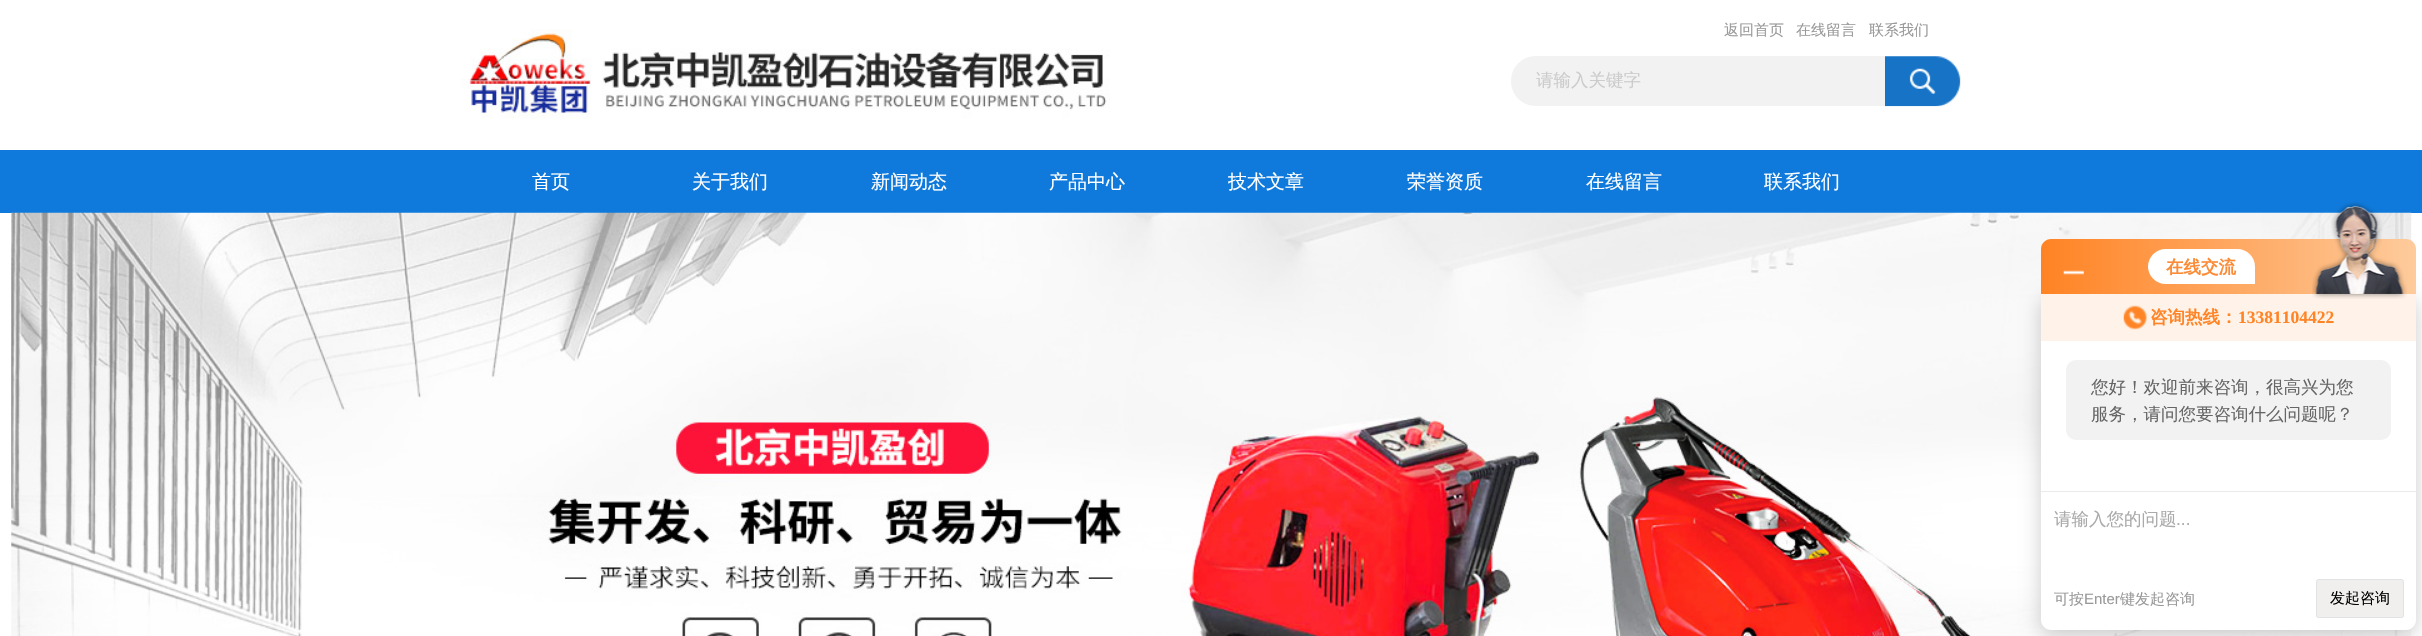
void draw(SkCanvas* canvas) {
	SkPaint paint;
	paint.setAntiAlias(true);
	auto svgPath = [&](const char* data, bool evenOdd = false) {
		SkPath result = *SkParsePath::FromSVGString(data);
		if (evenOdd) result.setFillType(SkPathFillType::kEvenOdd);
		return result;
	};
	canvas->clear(0xffffffff);
	canvas->drawImageRect(SkImages::DeferredFromEncodedData(SkData::MakeFromFileName("img1.png")), SkRect::MakeXYWH(461, 29, 649, 90), SkSamplingOptions());
	SkFont f1(fontMgr->matchFamilyStyle("WenQuanYi Zen Hei", SkFontStyle(500, SkFontStyle::kNormal_Width, SkFontStyle::kUpright_Slant)), 15);
	f1.setSubpixel(true);
	paint.setColor(0xff999999);
	canvas->drawString("返回首页", 1724, 35, f1, paint);
	canvas->drawString("在线留言", 1796, 35, f1, paint);
	canvas->drawString("联系我们", 1869, 35, f1, paint);
	paint.setColor(0xfff2f2f2);
	canvas->drawPath(svgPath("M1536 56H1885V106H1536C1522 106 1511 95 1511 81C1511 67 1522 56 1536 56Z"), paint);
	SkFont f2(fontMgr->matchFamilyStyle("WenQuanYi Zen Hei", SkFontStyle(500, SkFontStyle::kNormal_Width, SkFontStyle::kUpright_Slant)), 17.5);
	f2.setSubpixel(true);
	paint.setColor(0xffcccccc);
	canvas->drawString("请输入关键字", 1536, 86, f2, paint);
	canvas->drawImageRect(SkImages::DeferredFromEncodedData(SkData::MakeFromFileName("img2.png")), SkRect::MakeXYWH(1885, 56, 76, 51), SkSamplingOptions());
	paint.setColor(0xff0f7adb);
	canvas->drawRect(SkRect::MakeXYWH(0, 150, 2422, 63), paint);
	SkFont f3(fontMgr->matchFamilyStyle("WenQuanYi Zen Hei", SkFontStyle(500, SkFontStyle::kNormal_Width, SkFontStyle::kUpright_Slant)), 19);
	f3.setSubpixel(true);
	paint.setColor(0xffffffff);
	canvas->drawString("首页", 532, 188, f3, paint);
	canvas->drawString("关于我们", 692, 188, f3, paint);
	canvas->drawString("新闻动态", 871, 188, f3, paint);
	canvas->drawString("产品中心", 1049, 188, f3, paint);
	canvas->drawString("技术文章", 1228, 188, f3, paint);
	canvas->drawString("荣誉资质", 1407, 188, f3, paint);
	canvas->drawString("在线留言", 1586, 188, f3, paint);
	canvas->drawString("联系我们", 1764, 188, f3, paint);
	canvas->drawImageRect(SkImages::DeferredFromEncodedData(SkData::MakeFromFileName("img3.png")), SkRect::MakeXYWH(11, 212, 2401, 424), SkSamplingOptions());
	paint.setColor(0x33000000);
	paint.setMaskFilter(SkMaskFilter::MakeBlur(kNormal_SkBlurStyle, 10));
	canvas->drawRoundRect(SkRect::MakeXYWH(2041, 299, 375, 336), 10, 10, paint);
	paint.setMaskFilter(nullptr);
	{
		const SkColor colors[] = {0xffff8324, 0xfffecb9c};
		const float stops[] = {0, 1};
		const SkPoint ends[] = {{2041, 266}, {2416, 266}};
		paint.setShader(SkGradientShader::MakeLinear(ends, colors, stops, 2, SkTileMode::kClamp));
		paint.setAlpha(255);
	}
	canvas->drawPath(svgPath("M2051 239H2406C2411.5 239 2416 243.5 2416 249V294H2041V249C2041 243.5 2045.5 239 2051 239Z"), paint);
	canvas->drawImageRect(SkImages::DeferredFromEncodedData(SkData::MakeFromFileName("img4.png")), SkRect::MakeXYWH(2063, 270, 21, 5), SkSamplingOptions());
	paint.setShader(nullptr);
	paint.setColor(0xffffffff);
	canvas->drawPath(svgPath("M2165.5 249H2237.5C2247 249 2255 257 2255 266.5V284H2165.5C2156 284 2148 276 2148 266.5C2148 257 2156 249 2165.5 249Z"), paint);
	SkFont f4(fontMgr->matchFamilyStyle("WenQuanYi Zen Hei", SkFontStyle::Bold()), 17.5);
	f4.setSubpixel(true);
	paint.setColor(0xfffb8b36);
	canvas->drawString("在线交流", 2166, 273, f4, paint);
	paint.setColor(0xffffffff);
	canvas->drawPath(svgPath("M2041 294H2416V620C2416 625.5 2411.5 630 2406 630H2051C2045.5 630 2041 625.5 2041 620Z"), paint);
	paint.setColor(0xfffff3e9);
	canvas->drawRect(SkRect::MakeXYWH(2041, 294, 375, 47), paint);
	canvas->drawImageRect(SkImages::DeferredFromEncodedData(SkData::MakeFromFileName("img5.png")), SkRect::MakeXYWH(2312, 202, 95, 97), SkSamplingOptions());
	canvas->drawImageRect(SkImages::DeferredFromEncodedData(SkData::MakeFromFileName("img6.png")), SkRect::MakeXYWH(2123, 305, 24, 25), SkSamplingOptions());
	paint.setColor(0xffff8426);
	canvas->drawString("咨询热线：", 2150, 323, f4, paint);
	SkFont f5(fontMgr->matchFamilyStyle("Liberation Serif", SkFontStyle::Bold()), 17.5);
	f5.setSubpixel(true);
	canvas->drawString("13381104422", 2238, 323, f5, paint);
	paint.setColor(0xfff2f2f2);
	canvas->drawRoundRect(SkRect::MakeXYWH(2066, 360, 325, 80), 10, 10, paint);
	paint.setColor(0xff666666);
	canvas->drawString("您好！欢迎前来咨询，很高兴为您", 2091, 393, f2, paint);
	canvas->drawString("服务，请问您要咨询什么问题呢？", 2091, 420, f2, paint);
	paint.setColor(0xffeaeaea);
	canvas->drawRect(SkRect::MakeXYWH(2041, 491, 375, 1), paint);
	paint.setColor(0xffaaaaaa);
	canvas->drawString("请输入您的问题", 2054, 525, f2, paint);
	SkFont f6(fontMgr->matchFamilyStyle("Liberation Sans", SkFontStyle::Normal()), 17.5);
	f6.setSubpixel(true);
	canvas->drawString("...", 2176, 525, f6, paint);
	paint.setColor(0xff999999);
	canvas->drawString("可按", 2054, 604, f1, paint);
	SkFont f7(fontMgr->matchFamilyStyle("Liberation Sans", SkFontStyle::Normal()), 15);
	f7.setSubpixel(true);
	canvas->drawString("Enter", 2084, 604, f7, paint);
	canvas->drawString("键发起咨询", 2120, 604, f1, paint);
	paint.setColor(0xfff0efed);
	canvas->drawRoundRect(SkRect::MakeXYWH(2316.5, 579.5, 87, 38), 2, 2, paint);
	paint.setStroke(true);
	paint.setStrokeWidth(1);
	paint.setColor(0xffe2e2e2);
	canvas->drawRoundRect(SkRect::MakeXYWH(2316.5, 579.5, 87, 38), 2, 2, paint);
	paint.setStroke(false);
	paint.setColor(0xff000000);
	canvas->drawString("发起咨询", 2330, 603, f1, paint);
}
